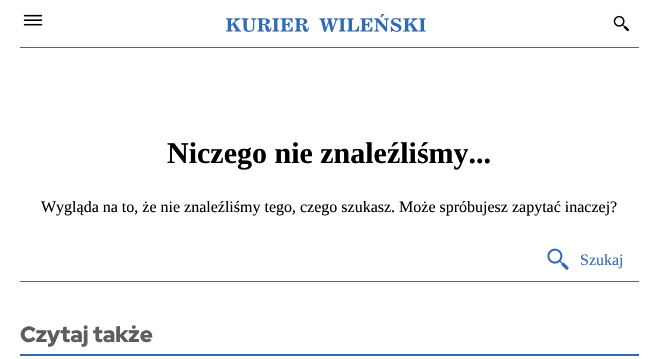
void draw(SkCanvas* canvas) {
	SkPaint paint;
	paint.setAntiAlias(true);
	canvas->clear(0xffffffff);
	canvas->drawImageRect(SkImages::DeferredFromEncodedData(SkData::MakeFromFileName("img1.png")), SkRect::MakeXYWH(23, 14, 20, 12), SkSamplingOptions());
	canvas->drawImageRect(SkImages::DeferredFromEncodedData(SkData::MakeFromFileName("img2.png")), SkRect::MakeXYWH(226, 14, 200, 18), SkSamplingOptions());
	canvas->drawImageRect(SkImages::DeferredFromEncodedData(SkData::MakeFromFileName("img3.png")), SkRect::MakeXYWH(613, 15, 16, 17), SkSamplingOptions());
	paint.setColor(0xff336bb1);
	canvas->drawRect(SkRect::MakeXYWH(20, 47, 619, 1), paint);
	SkFont f1(fontMgr->matchFamilyStyle("Liberation Serif", SkFontStyle::Bold()), 30);
	f1.setSubpixel(true);
	paint.setColor(0xff000000);
	canvas->drawString("Niczego nie znaleźliśmy...", 167, 163, f1, paint);
	SkFont f2(fontMgr->matchFamilyStyle("Liberation Serif", SkFontStyle::Normal()), 16);
	f2.setSubpixel(true);
	canvas->drawString("Wygląda na to, że nie znaleźliśmy tego, czego szukasz. Może spróbujesz zapytać inaczej?", 41, 212, f2, paint);
	canvas->drawImageRect(SkImages::DeferredFromEncodedData(SkData::MakeFromFileName("img4.png")), SkRect::MakeXYWH(547, 248, 22, 22), SkSamplingOptions());
	paint.setColor(0xff336bb1);
	canvas->drawString("Szukaj", 580, 265, f2, paint);
	canvas->drawRect(SkRect::MakeXYWH(20, 281, 619, 1), paint);
	canvas->drawRect(SkRect::MakeXYWH(20, 354, 619, 2), paint);
	SkFont f3(fontMgr->matchFamilyStyle("Red Hat Display", SkFontStyle(900, SkFontStyle::kNormal_Width, SkFontStyle::kUpright_Slant)), 22);
	f3.setSubpixel(true);
	paint.setColor(0xff5d5d5d);
	canvas->drawString("Czytaj także", 20, 342, f3, paint);
}
